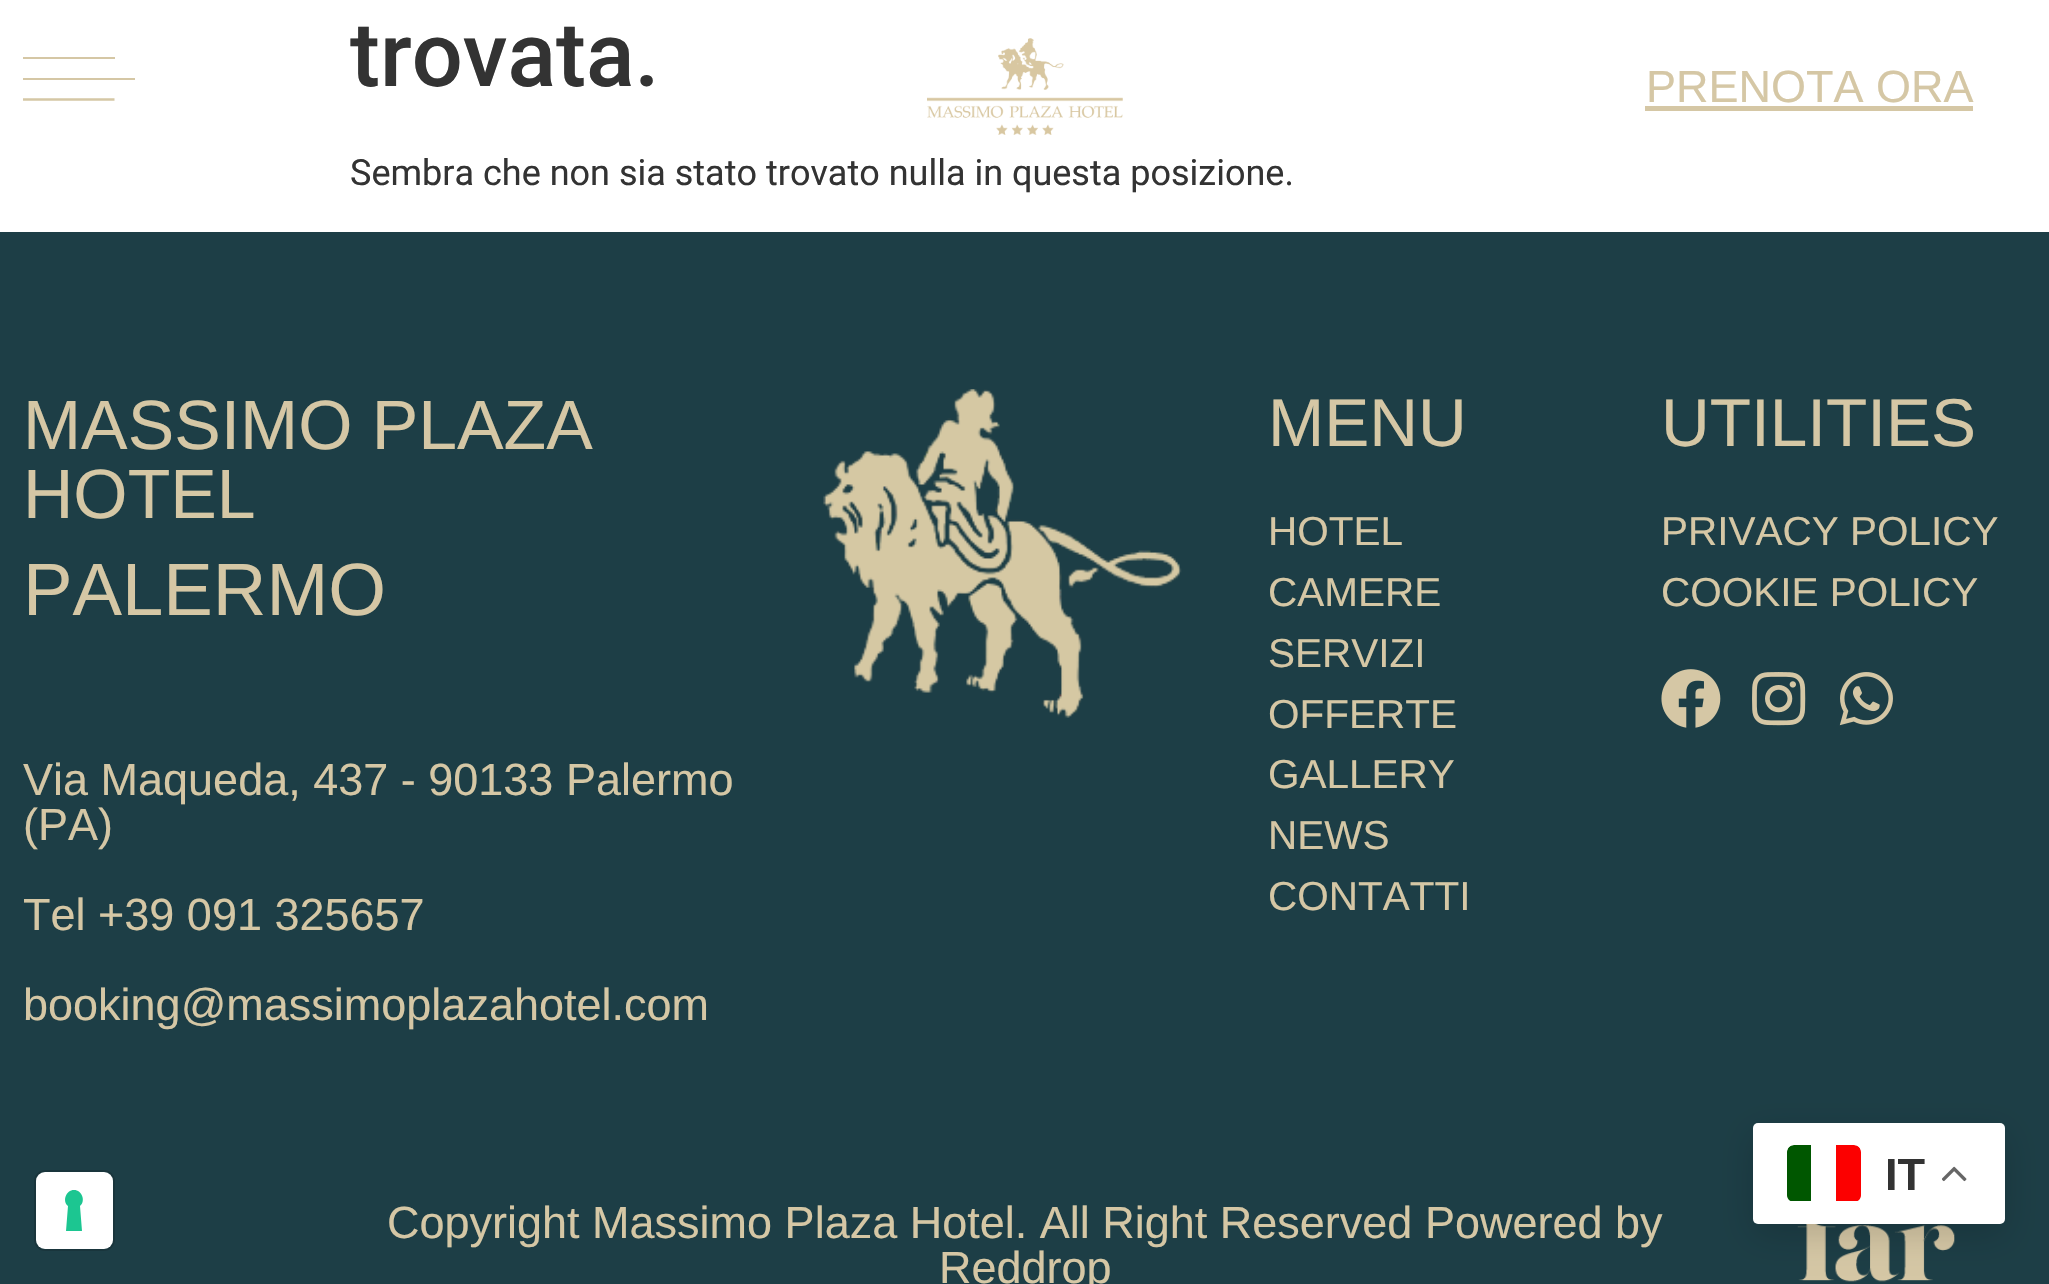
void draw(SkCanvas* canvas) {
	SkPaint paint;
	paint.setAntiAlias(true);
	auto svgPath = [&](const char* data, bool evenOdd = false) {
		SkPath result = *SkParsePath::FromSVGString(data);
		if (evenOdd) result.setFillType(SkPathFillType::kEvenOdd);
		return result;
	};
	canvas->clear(0xffffffff);
	SkFont f1(fontMgr->matchFamilyStyle("Roboto", SkFontStyle(500, SkFontStyle::kNormal_Width, SkFontStyle::kUpright_Slant)), 90);
	f1.setSubpixel(true);
	paint.setColor(0xff333333);
	canvas->drawString("trovata.", 350, 86, f1, paint);
	SkFont f2(fontMgr->matchFamilyStyle("Roboto", SkFontStyle::Normal()), 36);
	f2.setSubpixel(true);
	canvas->drawString("Sembra che non sia stato trovato nulla in questa posizione.", 350, 185, f2, paint);
	paint.setColor(0xffd5c7a5);
	canvas->drawRect(SkRect::MakeXYWH(23, 57, 92, 2), paint);
	canvas->save();
	canvas->clipRect(SkRect::MakeXYWH(23, 23, 112, 112));
	paint.setStroke(true);
	paint.setStrokeWidth(2.3);
	canvas->drawPath(svgPath("M22.5 99.5H114.5"), paint);
	canvas->restore();
	paint.setStroke(false);
	canvas->drawRect(SkRect::MakeXYWH(23, 78, 112, 2), paint);
	canvas->drawImageRect(SkImages::DeferredFromEncodedData(SkData::MakeFromFileName("img1.png")), SkRect::MakeXYWH(927, 38, 196, 97), SkSamplingOptions());
	SkFont f3(fontMgr->matchFamilyStyle("Liberation Sans", SkFontStyle::Normal()), 45);
	f3.setSubpixel(true);
	canvas->drawString("PRENOTA ORA", 1646, 102, f3, paint);
	canvas->drawRect(SkRect::MakeXYWH(1645, 106, 328, 5), paint);
	paint.setColor(0xff1d3e46);
	canvas->drawRect(SkRect::MakeXYWH(0, 232, 2049, 1052), paint);
	SkFont f4(fontMgr->matchFamilyStyle("Liberation Sans", SkFontStyle::Normal()), 69.75);
	f4.setSubpixel(true);
	paint.setColor(0xffd5c7a5);
	canvas->drawString("MASSIMO PLAZA", 23, 449, f4, paint);
	canvas->drawString("HOTEL", 23, 518, f4, paint);
	SkFont f5(fontMgr->matchFamilyStyle("Liberation Sans", SkFontStyle::Normal()), 74.25);
	f5.setSubpixel(true);
	canvas->drawString("PALERMO", 23, 615, f5, paint);
	canvas->drawString("Via Maqueda, 437 - 90133 Palermo", 23, 795, f3, paint);
	canvas->drawString("(PA)", 23, 840, f3, paint);
	canvas->drawString("Tel +39 091 325657", 23, 930, f3, paint);
	canvas->drawString("booking@massimoplazahotel.com", 23, 1020, f3, paint);
	canvas->drawImageRect(SkImages::DeferredFromEncodedData(SkData::MakeFromFileName("img2.png")), SkRect::MakeXYWH(823, 389, 359, 329), SkSamplingOptions());
	SkFont f6(fontMgr->matchFamilyStyle("Liberation Sans", SkFontStyle::Normal()), 67.5);
	f6.setSubpixel(true);
	canvas->drawString("MENU", 1268, 446, f6, paint);
	SkFont f7(fontMgr->matchFamilyStyle("Liberation Sans", SkFontStyle::Normal()), 40.5);
	f7.setSubpixel(true);
	canvas->drawString("HOTEL", 1268, 545, f7, paint);
	canvas->drawString("CAMERE", 1268, 606, f7, paint);
	canvas->drawString("SERVIZI", 1268, 667, f7, paint);
	canvas->drawString("OFFERTE", 1268, 728, f7, paint);
	canvas->drawString("GALLERY", 1268, 788, f7, paint);
	canvas->drawString("NEWS", 1268, 849, f7, paint);
	canvas->drawString("CONTATTI", 1268, 910, f7, paint);
	canvas->drawString("UTILITIES", 1661, 446, f6, paint);
	canvas->drawString("PRIVACY POLICY", 1661, 545, f7, paint);
	canvas->drawString("COOKIE POLICY", 1661, 606, f7, paint);
	canvas->drawImageRect(SkImages::DeferredFromEncodedData(SkData::MakeFromFileName("img3.png")), SkRect::MakeXYWH(1661, 669, 60, 59), SkSamplingOptions());
	canvas->drawImageRect(SkImages::DeferredFromEncodedData(SkData::MakeFromFileName("img4.png")), SkRect::MakeXYWH(1752, 672, 54, 54), SkSamplingOptions());
	canvas->drawImageRect(SkImages::DeferredFromEncodedData(SkData::MakeFromFileName("img5.png")), SkRect::MakeXYWH(1839, 672, 54, 54), SkSamplingOptions());
	canvas->drawString("Copyright Massimo Plaza Hotel. All Right Reserved Powered by", 387, 1238, f3, paint);
	canvas->drawString("Reddrop", 939, 1283, f3, paint);
	canvas->drawImageRect(SkImages::DeferredFromEncodedData(SkData::MakeFromFileName("img6.png")), SkRect::MakeXYWH(1797, 1224, 158, 58), SkSamplingOptions());
	paint.setStroke(true);
	paint.setStrokeWidth(2);
	paint.setColor(0xff19353c);
	canvas->drawRoundRect(SkRect::MakeXYWH(35, 1171, 79, 79), 10, 10, paint);
	paint.setStroke(false);
	paint.setColor(0xffffffff);
	canvas->drawRoundRect(SkRect::MakeXYWH(36, 1172, 77, 77), 9, 9, paint);
	paint.setColor(0xff1cc691);
	canvas->drawPath(svgPath("M74 1190C82 1190 86 1201 80 1206L82 1231H66L68 1206C62 1201 66 1190 74 1190Z", true), paint);
	paint.setColor(0x26000000);
	paint.setMaskFilter(SkMaskFilter::MakeBlur(kNormal_SkBlurStyle, 17));
	canvas->drawRoundRect(SkRect::MakeXYWH(1753, 1134, 252, 101), 5, 5, paint);
	paint.setMaskFilter(nullptr);
	paint.setColor(0xffffffff);
	canvas->drawRoundRect(SkRect::MakeXYWH(1753, 1123, 252, 101), 5, 5, paint);
	canvas->save();
	canvas->clipPath(svgPath("M1794 1145H1854C1858 1145 1861 1148 1861 1152V1195C1861 1199 1858 1202 1854 1202H1794C1790 1202 1787 1199 1787 1195V1152C1787 1148 1790 1145 1794 1145Z"), true);
	paint.setColor(0xff005700);
	canvas->drawPath(svgPath("M1794 1145H1811V1201H1787V1152C1787 1148 1790 1145 1794 1145Z"), paint);
	paint.setColor(0xfffc0000);
	canvas->drawPath(svgPath("M1836 1145H1854C1858 1145 1861 1148 1861 1152V1201H1836Z"), paint);
	canvas->restore();
	SkFont f8(fontMgr->matchFamilyStyle("Liberation Sans", SkFontStyle::Bold()), 45);
	f8.setSubpixel(true);
	paint.setColor(0xff333333);
	canvas->drawString("IT", 1885, 1190, f8, paint);
	canvas->drawImageRect(SkImages::DeferredFromEncodedData(SkData::MakeFromFileName("img7.png")), SkRect::MakeXYWH(1942, 1166, 25, 16), SkSamplingOptions());
}
